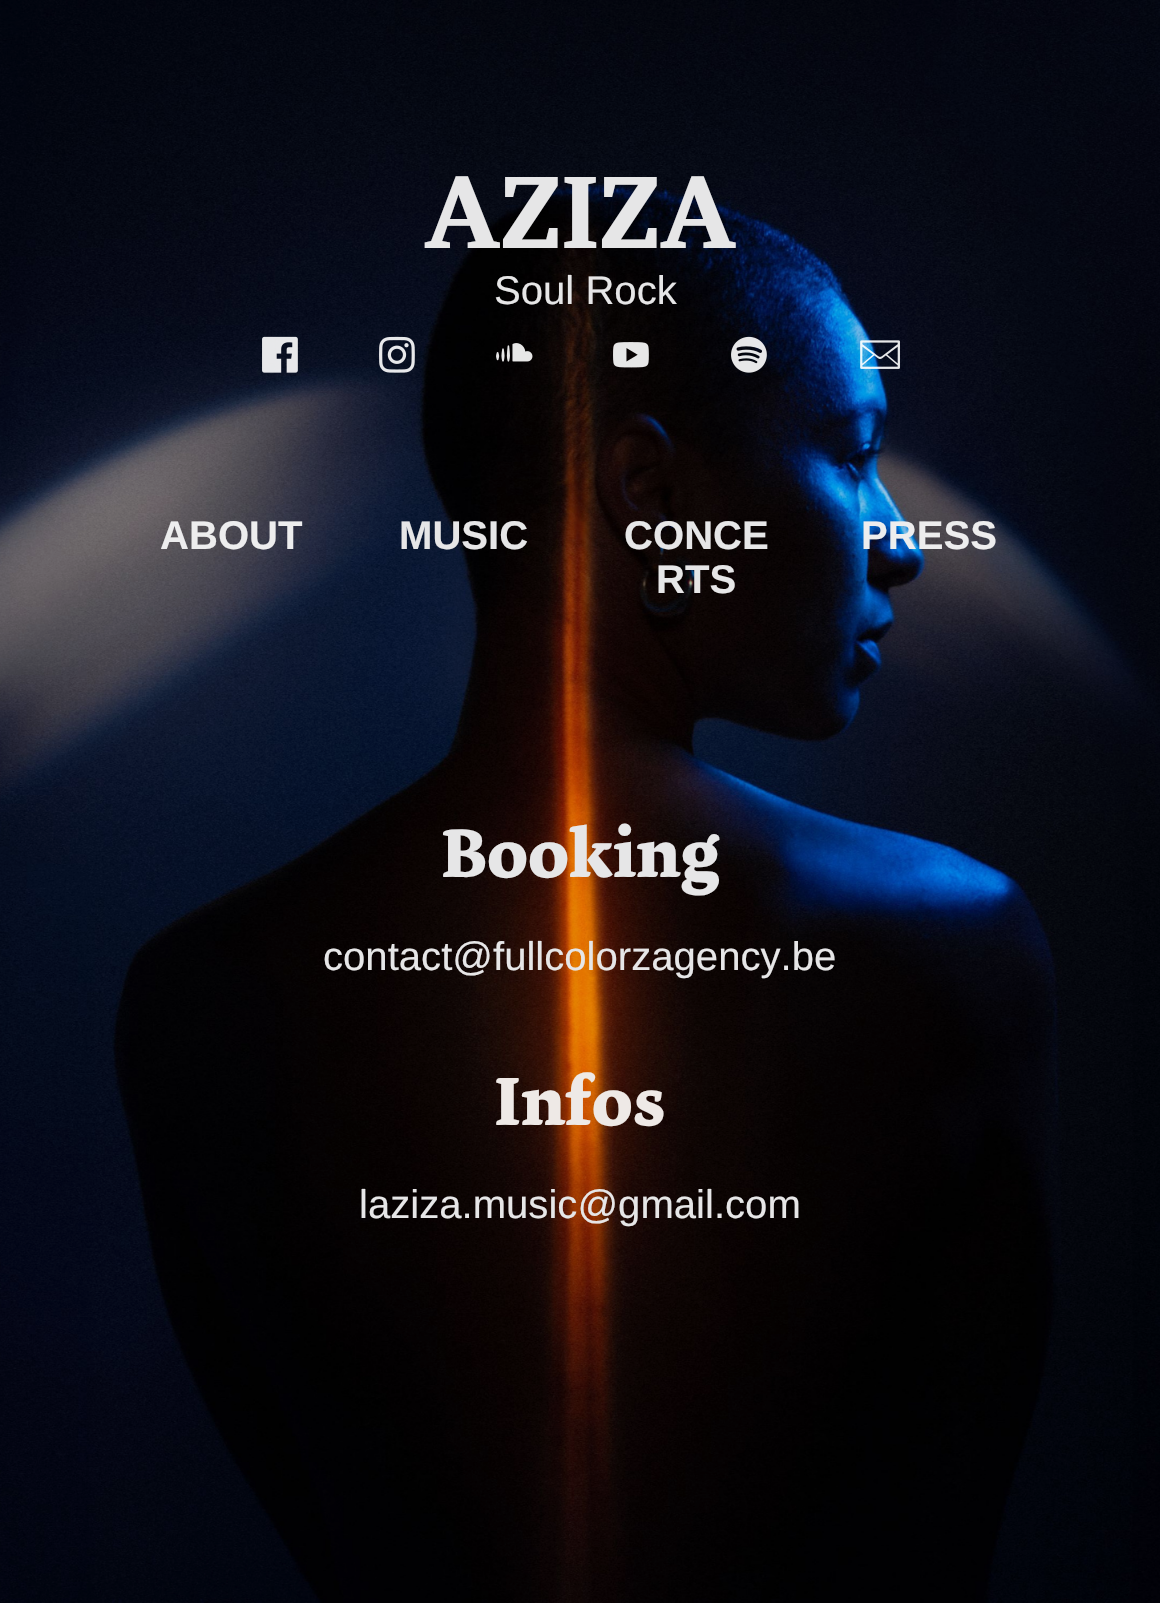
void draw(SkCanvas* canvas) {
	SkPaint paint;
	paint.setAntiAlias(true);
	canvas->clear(0xffffffff);
	canvas->drawImageRect(SkImages::DeferredFromEncodedData(SkData::MakeFromFileName("img1.png")), SkRect::MakeXYWH(0, 0, 1160, 1603), SkSamplingOptions());
	SkFont f1(fontMgr->matchFamilyStyle("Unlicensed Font", SkFontStyle::Bold()), 112);
	f1.setSubpixel(true);
	paint.setColor(0xffe6e6e7);
	canvas->drawString("AZIZA", 425, 248, f1, paint);
	SkFont f2(fontMgr->matchFamilyStyle("Liberation Sans", SkFontStyle::Normal()), 40.1);
	f2.setSubpixel(true);
	canvas->drawString("Soul Rock", 494, 304, f2, paint);
	canvas->drawImageRect(SkImages::DeferredFromEncodedData(SkData::MakeFromFileName("img2.png")), SkRect::MakeXYWH(262, 336, 36, 37), SkSamplingOptions());
	canvas->drawImageRect(SkImages::DeferredFromEncodedData(SkData::MakeFromFileName("img3.png")), SkRect::MakeXYWH(379, 336, 36, 37), SkSamplingOptions());
	canvas->drawImageRect(SkImages::DeferredFromEncodedData(SkData::MakeFromFileName("img4.png")), SkRect::MakeXYWH(496, 343, 37, 19), SkSamplingOptions());
	canvas->drawImageRect(SkImages::DeferredFromEncodedData(SkData::MakeFromFileName("img5.png")), SkRect::MakeXYWH(613, 342, 36, 26), SkSamplingOptions());
	canvas->drawImageRect(SkImages::DeferredFromEncodedData(SkData::MakeFromFileName("img6.png")), SkRect::MakeXYWH(731, 336, 36, 37), SkSamplingOptions());
	canvas->drawImageRect(SkImages::DeferredFromEncodedData(SkData::MakeFromFileName("img7.png")), SkRect::MakeXYWH(860, 340, 40, 29), SkSamplingOptions());
	SkFont f3(fontMgr->matchFamilyStyle("Liberation Sans", SkFontStyle::Bold()), 40.1);
	f3.setSubpixel(true);
	paint.setColor(0xffededee);
	canvas->drawString("ABOUT", 160, 549, f3, paint);
	paint.setColor(0xffe6e6e7);
	canvas->drawString("MUSIC", 399, 549, f3, paint);
	canvas->drawString("CONCE", 624, 549, f3, paint);
	canvas->drawString("RTS", 656, 593, f3, paint);
	paint.setColor(0xffededee);
	canvas->drawString("PRESS", 861, 549, f3, paint);
	SkFont f4(fontMgr->matchFamilyStyle("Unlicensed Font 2", SkFontStyle::Bold()), 72);
	f4.setSubpixel(true);
	paint.setColor(0xffe6e6e7);
	canvas->drawString("Booking", 441, 877, f4, paint);
	canvas->drawString("contact@fullcolorzagency.be", 323, 970, f2, paint);
	paint.setColor(0xffeee9e6);
	canvas->drawString("Infos", 494, 1125, f4, paint);
	paint.setColor(0xffe6e6e7);
	canvas->drawString("laziza.music@gmail.com", 359, 1218, f2, paint);
}
